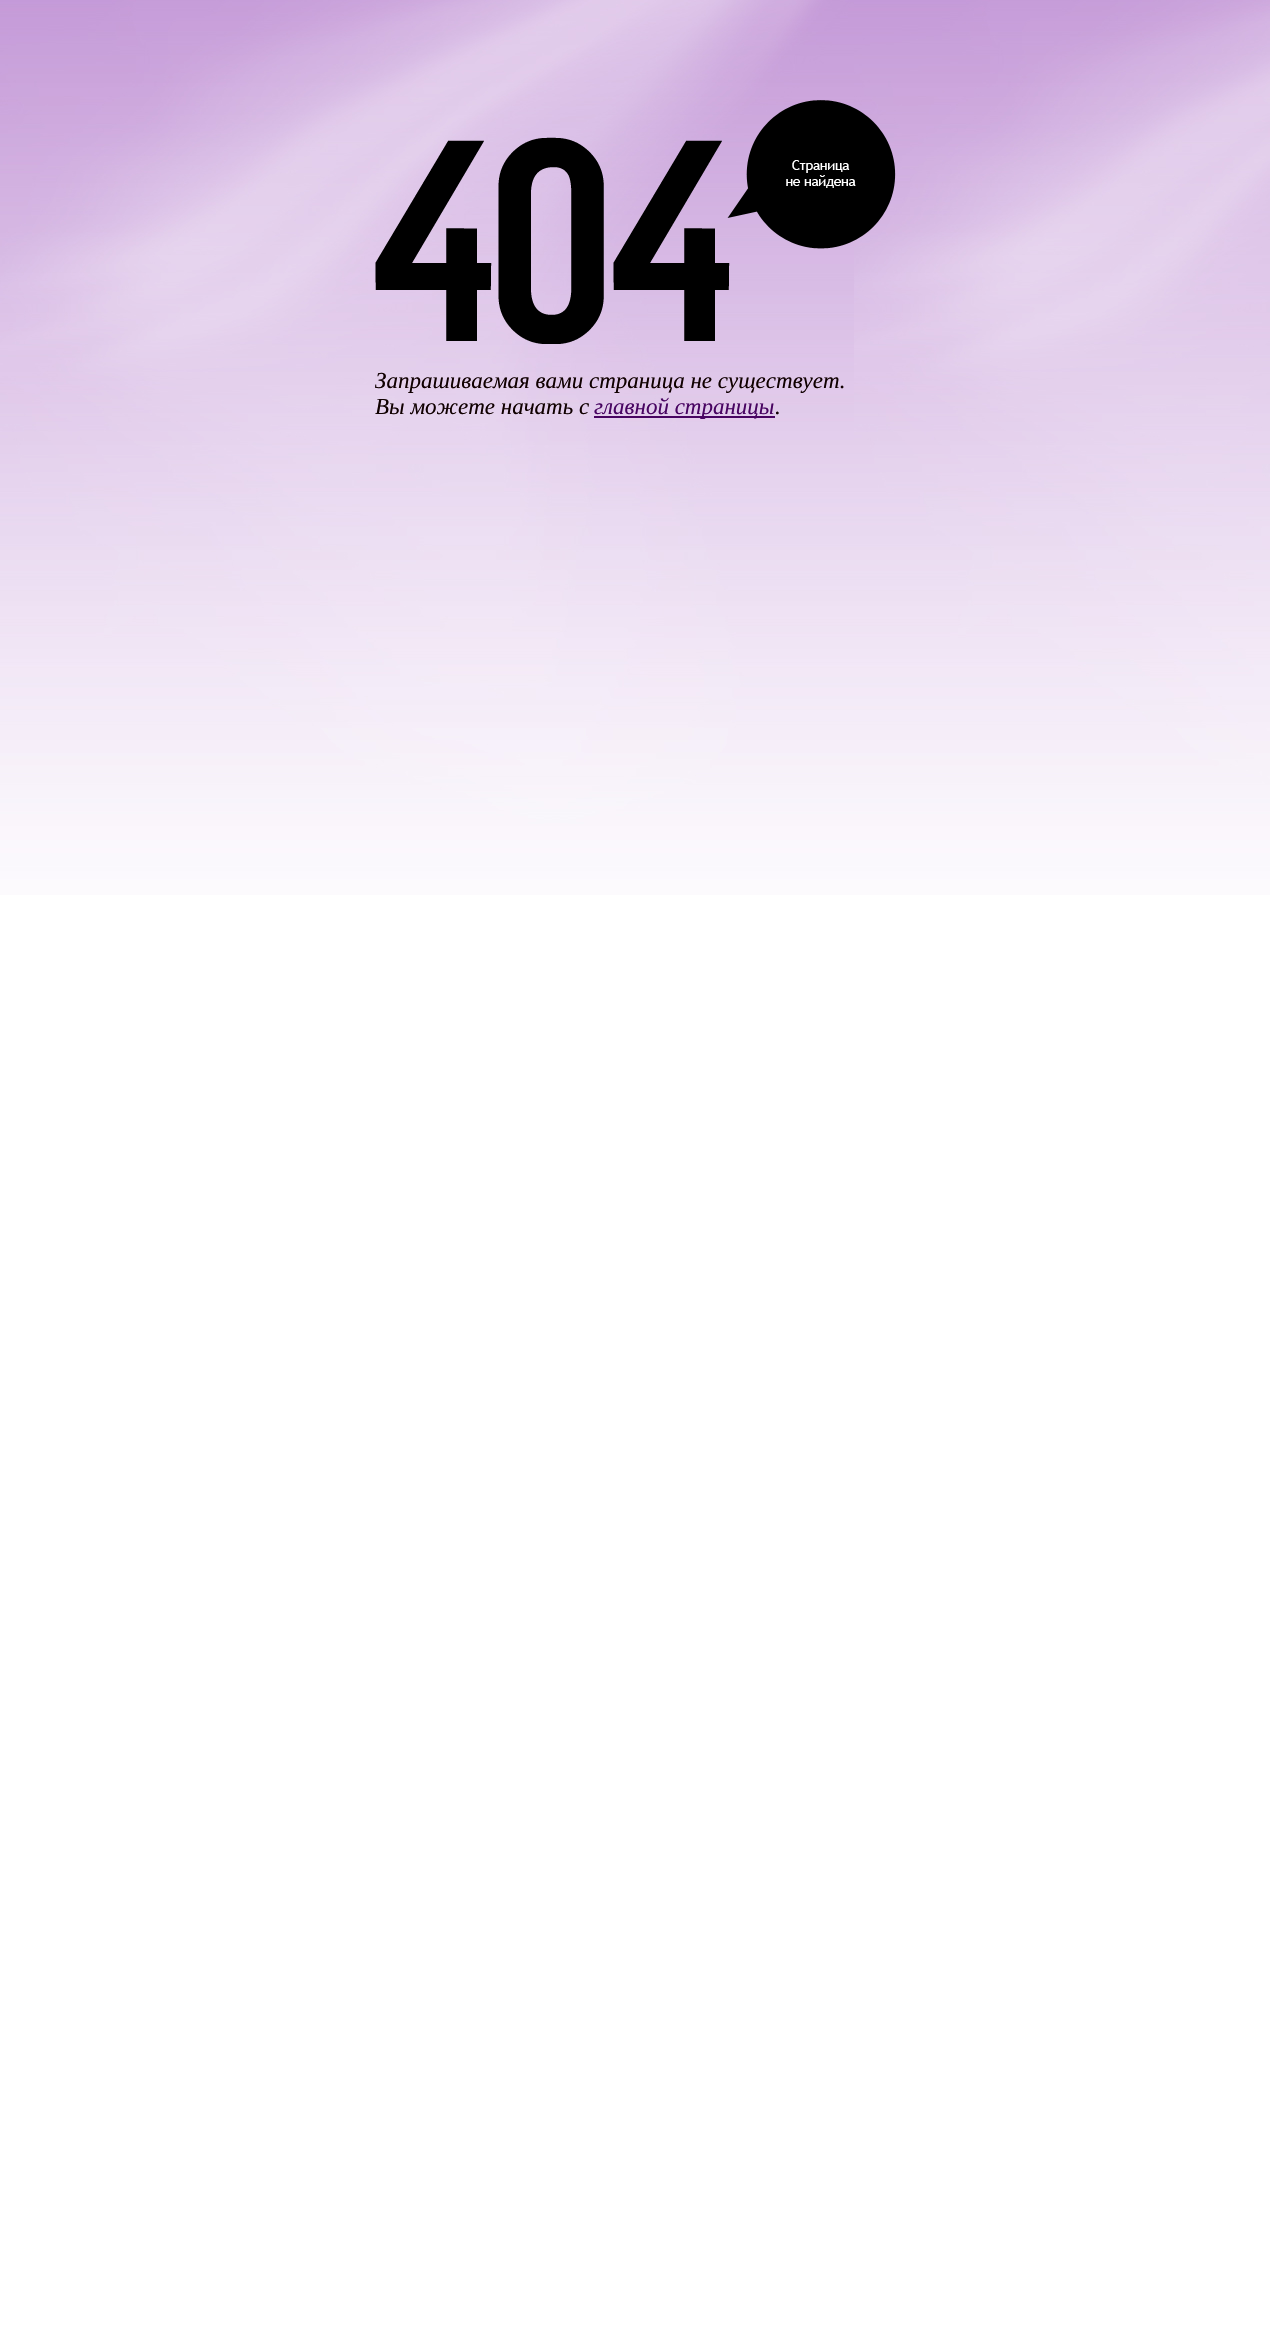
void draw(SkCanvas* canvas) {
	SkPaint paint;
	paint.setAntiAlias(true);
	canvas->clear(0xffffffff);
	canvas->drawImageRect(SkImages::DeferredFromEncodedData(SkData::MakeFromFileName("img1.png")), SkRect::MakeXYWH(0, 0, 1270, 895), SkSamplingOptions());
	canvas->drawImageRect(SkImages::DeferredFromEncodedData(SkData::MakeFromFileName("img2.png")), SkRect::MakeXYWH(375, 100, 521, 244), SkSamplingOptions());
	SkFont f1(fontMgr->matchFamilyStyle("Liberation Serif", SkFontStyle::Italic()), 23);
	f1.setSubpixel(true);
	paint.setColor(0xff100000);
	canvas->drawString("Запрашиваемая вами страница не существует.", 375, 388, f1, paint);
	canvas->drawString("Вы можете начать с", 375, 414, f1, paint);
	paint.setColor(0xff480461);
	canvas->drawRect(SkRect::MakeXYWH(594, 416, 181, 2), paint);
	canvas->drawString("главной страницы", 594, 414, f1, paint);
	paint.setColor(0xff100000);
	canvas->drawString(".", 775, 414, f1, paint);
}
